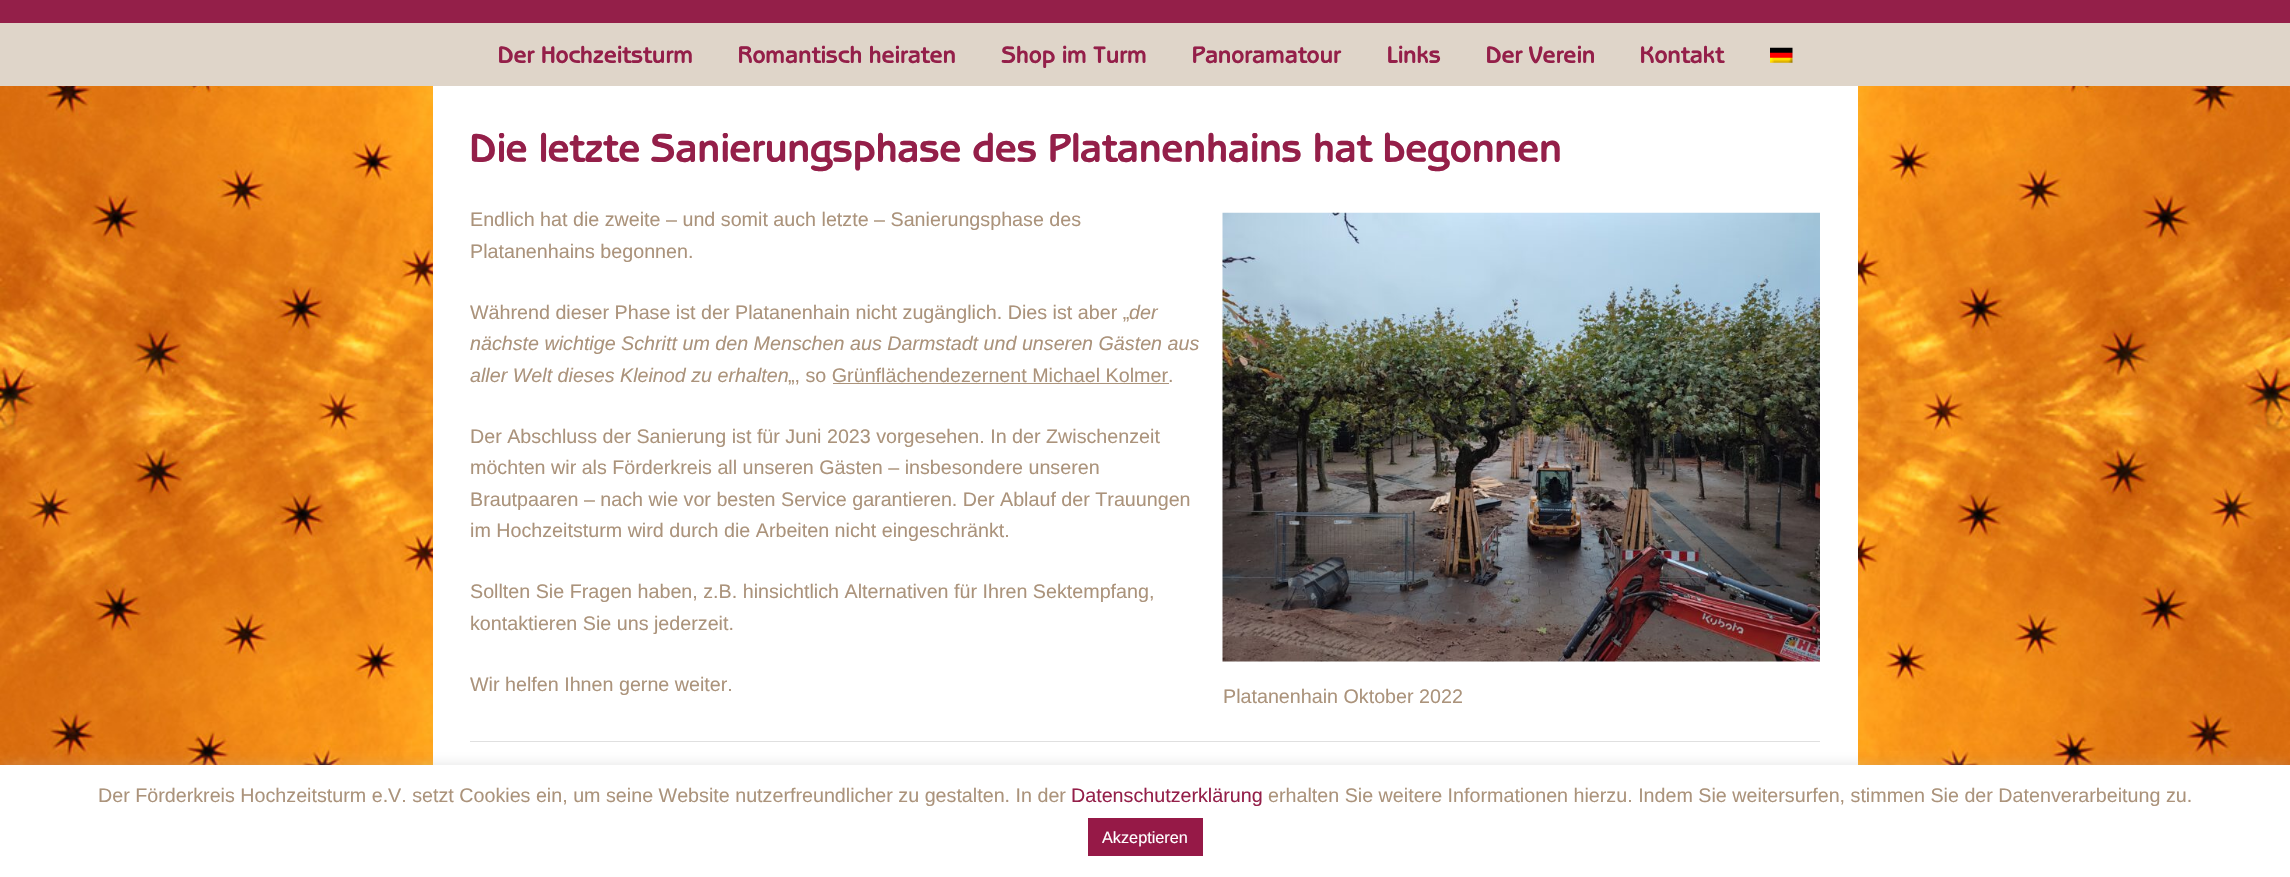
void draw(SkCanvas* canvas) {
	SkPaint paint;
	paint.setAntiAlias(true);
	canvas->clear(0xffffffff);
	canvas->drawImageRect(SkImages::DeferredFromEncodedData(SkData::MakeFromFileName("img1.png")), SkRect::MakeXYWH(0, 86, 2290, 679), SkSamplingOptions());
	paint.setColor(0xff941f49);
	canvas->drawRect(SkRect::MakeXYWH(0, 0, 2290, 23), paint);
	paint.setColor(0xffdfd5c9);
	canvas->drawRect(SkRect::MakeXYWH(0, 23, 2290, 63), paint);
	SkFont f1(fontMgr->matchFamilyStyle("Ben", SkFontStyle::Normal()), 23.6);
	f1.setSubpixel(true);
	paint.setColor(0xff941f49);
	canvas->drawString("Der Hochzeitsturm", 498, 63, f1, paint);
	canvas->drawString("Romantisch heiraten", 738, 63, f1, paint);
	canvas->drawString("Shop im Turm", 1002, 63, f1, paint);
	canvas->drawString("Panoramatour", 1192, 63, f1, paint);
	canvas->drawString("Links", 1387, 63, f1, paint);
	canvas->drawString("Der Verein", 1486, 63, f1, paint);
	canvas->drawString("Kontakt", 1640, 63, f1, paint);
	canvas->drawImageRect(SkImages::DeferredFromEncodedData(SkData::MakeFromFileName("img2.png")), SkRect::MakeXYWH(1770, 47, 23, 16), SkSamplingOptions());
	paint.setColor(0xffffffff);
	canvas->drawRect(SkRect::MakeXYWH(433, 86, 1425, 679), paint);
	paint.setColor(0xffe0e0e0);
	canvas->drawRect(SkRect::MakeXYWH(470, 741, 1350, 1), paint);
	SkFont f2(fontMgr->matchFamilyStyle("Ben", SkFontStyle::Normal()), 40);
	f2.setSubpixel(true);
	paint.setColor(0xff941f49);
	canvas->drawString("Die letzte Sanierungsphase des Platanenhains hat begonnen", 470, 162, f2, paint);
	SkFont f3(fontMgr->matchFamilyStyle("Liberation Sans", SkFontStyle::Normal()), 19.7);
	f3.setSubpixel(true);
	paint.setColor(0xffab937b);
	canvas->drawString("Endlich hat die zweite – und somit auch letzte – Sanierungsphase des", 470, 226, f3, paint);
	canvas->drawString("Platanenhains begonnen.", 470, 258, f3, paint);
	canvas->drawString("Während dieser Phase ist der Platanenhain nicht zugänglich. Dies ist aber „", 470, 319, f3, paint);
	SkFont f4(fontMgr->matchFamilyStyle("Liberation Sans", SkFontStyle::Italic()), 19.7);
	f4.setSubpixel(true);
	canvas->drawString("der", 1129, 319, f4, paint);
	canvas->drawString("nächste wichtige Schritt um den Menschen aus Darmstadt und unseren Gästen aus", 470, 350, f4, paint);
	canvas->drawString("aller Welt dieses Kleinod zu erhalten", 470, 382, f4, paint);
	canvas->drawString("„, so Grünflächendezernent Michael Kolmer.", 788, 382, f3, paint);
	canvas->drawRect(SkRect::MakeXYWH(833, 383, 336, 1), paint);
	canvas->drawString("Der Abschluss der Sanierung ist für Juni 2023 vorgesehen. In der Zwischenzeit", 470, 443, f3, paint);
	canvas->drawString("möchten wir als Förderkreis all unseren Gästen – insbesondere unseren", 470, 474, f3, paint);
	canvas->drawString("Brautpaaren – nach wie vor besten Service garantieren. Der Ablauf der Trauungen", 470, 506, f3, paint);
	canvas->drawString("im Hochzeitsturm wird durch die Arbeiten nicht eingeschränkt.", 470, 537, f3, paint);
	canvas->drawString("Sollten Sie Fragen haben, z.B. hinsichtlich Alternativen für Ihren Sektempfang,", 470, 598, f3, paint);
	canvas->drawString("kontaktieren Sie uns jederzeit.", 470, 630, f3, paint);
	canvas->drawString("Wir helfen Ihnen gerne weiter.", 470, 691, f3, paint);
	canvas->drawImageRect(SkImages::DeferredFromEncodedData(SkData::MakeFromFileName("img3.png")), SkRect::MakeXYWH(1222, 212, 598, 450), SkSamplingOptions());
	canvas->drawString("Platanenhain Oktober 2022", 1223, 703, f3, paint);
	paint.setColor(0x4dacabab);
	paint.setMaskFilter(SkMaskFilter::MakeBlur(kNormal_SkBlurStyle, 6));
	canvas->drawRect(SkRect::MakeXYWH(0, 764, 2290, 112), paint);
	paint.setMaskFilter(nullptr);
	paint.setColor(0xffffffff);
	canvas->drawRect(SkRect::MakeXYWH(0, 765, 2290, 112), paint);
	paint.setColor(0xffab937b);
	canvas->drawString("Der Förderkreis Hochzeitsturm e.V. setzt Cookies ein, um seine Website nutzerfreundlicher zu gestalten. In der", 98, 802, f3, paint);
	paint.setColor(0xff941f49);
	canvas->drawString("Datenschutzerklärung", 1071, 802, f3, paint);
	paint.setColor(0xffab937b);
	canvas->drawString("erhalten Sie weitere Informationen hierzu. Indem Sie weitersurfen, stimmen Sie der Datenverarbeitung zu.", 1268, 802, f3, paint);
	paint.setColor(0xff961947);
	canvas->drawRect(SkRect::MakeXYWH(1088, 818, 115, 38), paint);
	SkFont f5(fontMgr->matchFamilyStyle("Liberation Sans", SkFontStyle::Normal()), 16.25);
	f5.setSubpixel(true);
	paint.setColor(0xffffffff);
	canvas->drawString("Akzeptieren", 1102, 843, f5, paint);
}
